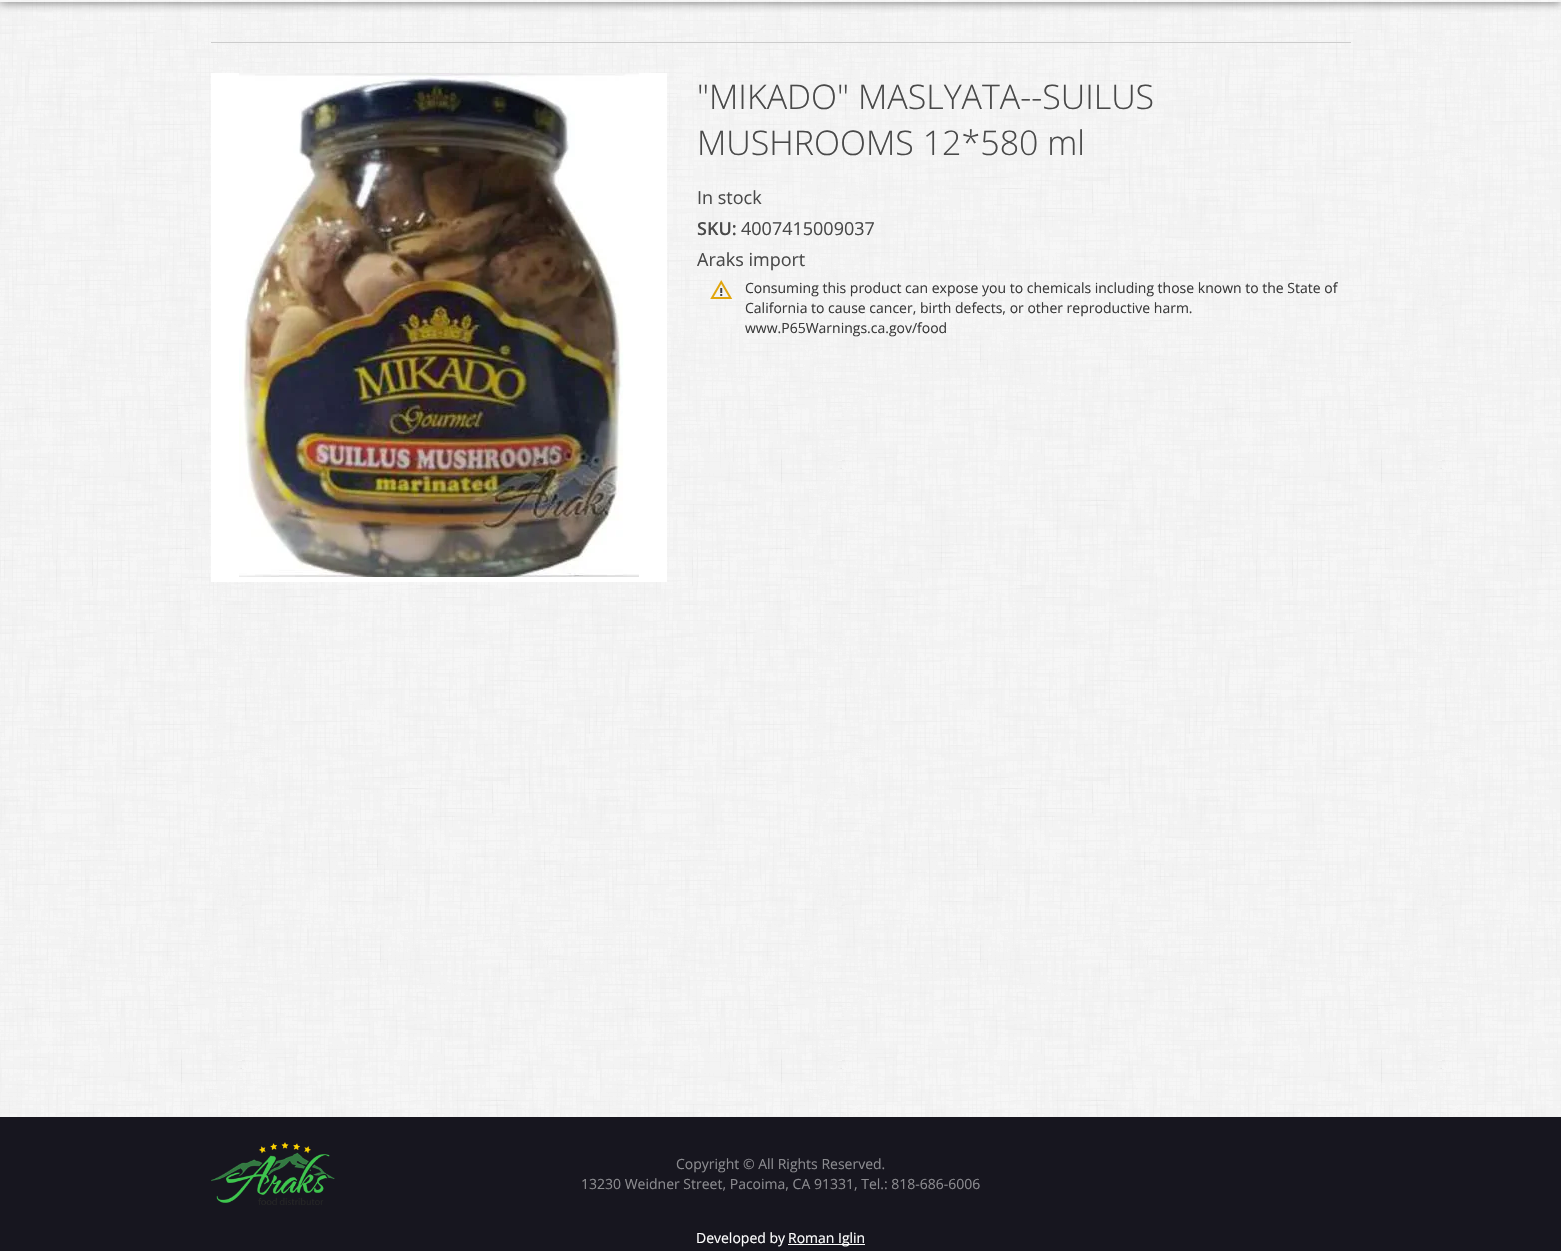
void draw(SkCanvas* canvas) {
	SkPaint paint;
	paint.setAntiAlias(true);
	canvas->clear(0xffffffff);
	canvas->drawImageRect(SkImages::DeferredFromEncodedData(SkData::MakeFromFileName("img1.png")), SkRect::MakeXYWH(0, 0, 1561, 1117), SkSamplingOptions());
	canvas->save();
	canvas->clipRect(SkRect::MakeXYWH(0, 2, 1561, 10));
	paint.setColor(0x80323232);
	paint.setMaskFilter(SkMaskFilter::MakeBlur(kNormal_SkBlurStyle, 4.5));
	canvas->drawRect(SkRect::MakeXYWH(0, -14, 1561, 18), paint);
	paint.setMaskFilter(nullptr);
	canvas->restore();
	paint.setColor(0x4dffffff);
	canvas->drawRect(SkRect::MakeXYWH(0, 0, 1561, 2), paint);
	paint.setColor(0xffcccccc);
	canvas->drawRect(SkRect::MakeXYWH(211, 42, 1140, 1), paint);
	paint.setColor(0xffffffff);
	canvas->drawRect(SkRect::MakeXYWH(211, 73, 456, 509), paint);
	canvas->drawImageRect(SkImages::DeferredFromEncodedData(SkData::MakeFromFileName("img2.png")), SkRect::MakeXYWH(239, 73, 400, 504), SkSamplingOptions());
	SkFont f1(fontMgr->matchFamilyStyle("Open Sans", SkFontStyle(300, SkFontStyle::kNormal_Width, SkFontStyle::kUpright_Slant)), 34);
	f1.setSubpixel(true);
	paint.setColor(0xff494949);
	canvas->drawString("\"MIKADO\" MASLYATA--SUILUS", 697, 109, f1, paint);
	canvas->drawString("MUSHROOMS 12*580 ml", 697, 155, f1, paint);
	SkFont f2(fontMgr->matchFamilyStyle("Open Sans", SkFontStyle::Normal()), 18);
	f2.setSubpixel(true);
	canvas->drawString("In stock", 697, 204, f2, paint);
	SkFont f3(fontMgr->matchFamilyStyle("Open Sans", SkFontStyle(600, SkFontStyle::kNormal_Width, SkFontStyle::kUpright_Slant)), 18);
	f3.setSubpixel(true);
	canvas->drawString("SKU:", 697, 235, f3, paint);
	canvas->drawString("4007415009037", 741, 235, f2, paint);
	canvas->drawString("Araks import", 697, 266, f2, paint);
	canvas->drawImageRect(SkImages::DeferredFromEncodedData(SkData::MakeFromFileName("img3.png")), SkRect::MakeXYWH(710, 280, 23, 19), SkSamplingOptions());
	SkFont f4(fontMgr->matchFamilyStyle("Open Sans", SkFontStyle::Normal()), 14);
	f4.setSubpixel(true);
	paint.setColor(0xff3b3b3b);
	canvas->drawString("Consuming this product can expose you to chemicals including those known to the State of", 745, 293, f4, paint);
	canvas->drawString("California to cause cancer, birth defects, or other reproductive harm.", 745, 313, f4, paint);
	canvas->drawString("www.P65Warnings.ca.gov/food", 745, 333, f4, paint);
	paint.setColor(0xff17161f);
	canvas->drawRect(SkRect::MakeXYWH(0, 1117, 1561, 134), paint);
	canvas->drawImageRect(SkImages::DeferredFromEncodedData(SkData::MakeFromFileName("img4.png")), SkRect::MakeXYWH(211, 1142, 124, 63), SkSamplingOptions());
	paint.setColor(0xff8b8b8f);
	canvas->drawString("Copyright © All Rights Reserved.", 676, 1169, f4, paint);
	canvas->drawString("13230 Weidner Street, Pacoima, CA 91331, Tel.: 818-686-6006", 581, 1189, f4, paint);
	paint.setColor(0xffffffff);
	canvas->drawString("Developed by", 696, 1243, f4, paint);
	canvas->drawRect(SkRect::MakeXYWH(788, 1244, 77, 1), paint);
	canvas->drawString("Roman Iglin", 788, 1243, f4, paint);
}
